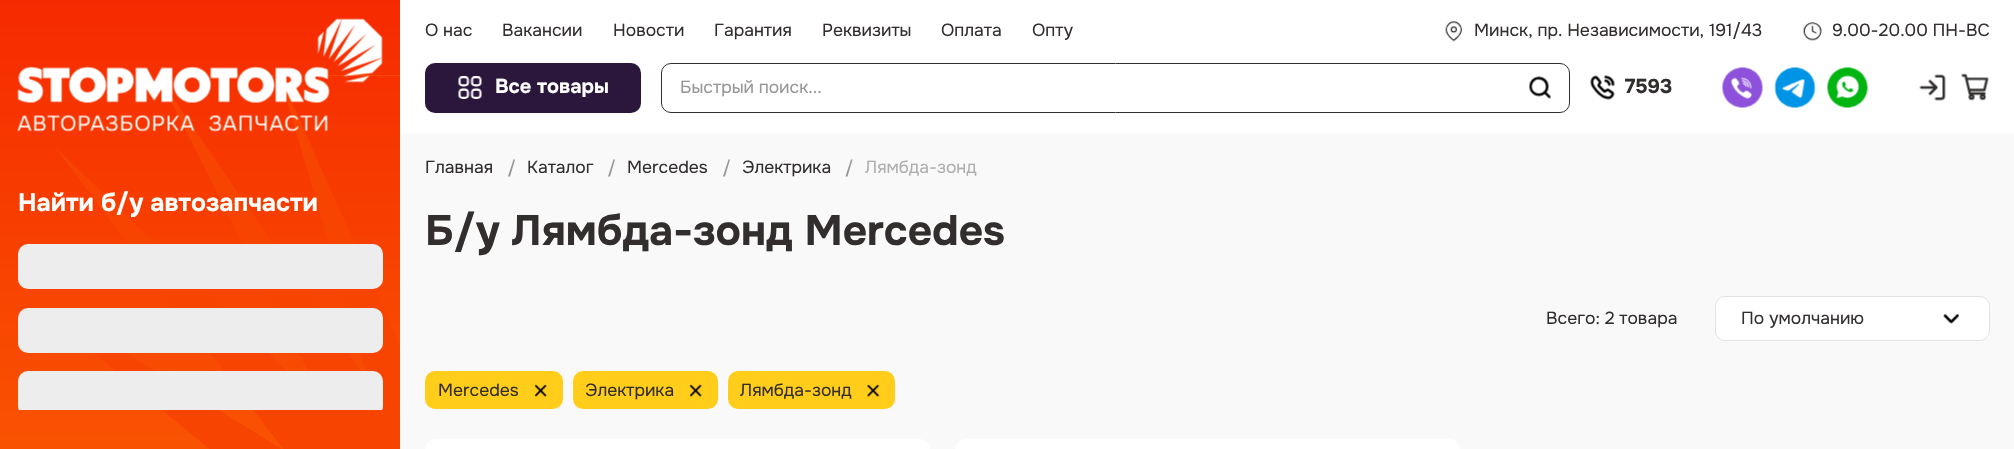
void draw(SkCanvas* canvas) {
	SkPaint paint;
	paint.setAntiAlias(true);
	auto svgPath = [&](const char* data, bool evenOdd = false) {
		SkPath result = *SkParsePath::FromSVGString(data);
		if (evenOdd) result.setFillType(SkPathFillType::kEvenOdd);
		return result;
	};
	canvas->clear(0xffffffff);
	{
		const SkColor colors[] = {0xfff62a00, 0xfff95301};
		const float stops[] = {0, 1};
		const SkPoint ends[] = {{200, 0}, {200, 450}};
		paint.setShader(SkGradientShader::MakeLinear(ends, colors, stops, 2, SkTileMode::kClamp));
		paint.setAlpha(255);
	}
	canvas->drawRect(SkRect::MakeXYWH(0, 0, 400, 449), paint);
	canvas->drawImageRect(SkImages::DeferredFromEncodedData(SkData::MakeFromFileName("img2.png")), SkRect::MakeXYWH(55, 75, 345, 374), SkSamplingOptions());
	canvas->drawImageRect(SkImages::DeferredFromEncodedData(SkData::MakeFromFileName("img1.png")), SkRect::MakeXYWH(17, 18, 366, 114), SkSamplingOptions());
	SkFont f1(fontMgr->matchFamilyStyle("Onest", SkFontStyle::Bold()), 25);
	f1.setSubpixel(true);
	paint.setShader(nullptr);
	paint.setColor(0xffffffff);
	canvas->drawString("Найти б/у автозапчасти", 18, 211, f1, paint);
	paint.setColor(0xffededed);
	canvas->drawRoundRect(SkRect::MakeXYWH(18, 244, 365, 45), 10, 10, paint);
	canvas->drawRoundRect(SkRect::MakeXYWH(18, 308, 365, 45), 10, 10, paint);
	canvas->save();
	canvas->clipRect(SkRect::MakeXYWH(18, 188, 365, 222));
	canvas->drawRoundRect(SkRect::MakeXYWH(18, 371, 365, 45), 10, 10, paint);
	canvas->restore();
	SkFont f2(fontMgr->matchFamilyStyle("Onest", SkFontStyle::Normal()), 17.5);
	f2.setSubpixel(true);
	paint.setColor(0xff322e2e);
	canvas->drawString("О нас", 425, 36, f2, paint);
	canvas->drawString("Вакансии", 502, 36, f2, paint);
	canvas->drawString("Новости", 613, 36, f2, paint);
	canvas->drawString("Гарантия", 714, 36, f2, paint);
	canvas->drawString("Реквизиты", 822, 36, f2, paint);
	canvas->drawString("Оплата", 941, 36, f2, paint);
	canvas->drawString("Опту", 1032, 36, f2, paint);
	canvas->drawImageRect(SkImages::DeferredFromEncodedData(SkData::MakeFromFileName("img3.png")), SkRect::MakeXYWH(1445, 21, 17, 21), SkSamplingOptions());
	canvas->drawString("Минск, пр. Независимости, 191/43", 1474, 36, f2, paint);
	canvas->drawImageRect(SkImages::DeferredFromEncodedData(SkData::MakeFromFileName("img4.png")), SkRect::MakeXYWH(1803, 22, 19, 19), SkSamplingOptions());
	canvas->drawString("9.00-20.00 ПН-ВС", 1832, 36, f2, paint);
	paint.setColor(0xff2b163c);
	canvas->drawRoundRect(SkRect::MakeXYWH(425, 63, 216, 50), 10, 10, paint);
	canvas->drawImageRect(SkImages::DeferredFromEncodedData(SkData::MakeFromFileName("img5.png")), SkRect::MakeXYWH(458, 76, 24, 23), SkSamplingOptions());
	SkFont f3(fontMgr->matchFamilyStyle("Onest", SkFontStyle::Bold()), 20);
	f3.setSubpixel(true);
	paint.setColor(0xffffffff);
	canvas->drawString("Все товары", 495, 93, f3, paint);
	paint.setStroke(true);
	paint.setStrokeWidth(1);
	paint.setColor(0xff322e2e);
	canvas->drawRoundRect(SkRect::MakeXYWH(661.5, 63.5, 908, 49), 9.5, 9.5, paint);
	paint.setStroke(false);
	paint.setColor(0xff969696);
	canvas->drawString("Быстрый поиск...", 680, 93, f2, paint);
	canvas->drawImageRect(SkImages::DeferredFromEncodedData(SkData::MakeFromFileName("img6.png")), SkRect::MakeXYWH(1529, 76, 22, 23), SkSamplingOptions());
	canvas->drawImageRect(SkImages::DeferredFromEncodedData(SkData::MakeFromFileName("img7.png")), SkRect::MakeXYWH(1590, 75, 25, 25), SkSamplingOptions());
	paint.setColor(0xff322e2e);
	canvas->drawString("7593", 1625, 93, f3, paint);
	canvas->drawImageRect(SkImages::DeferredFromEncodedData(SkData::MakeFromFileName("img8.png")), SkRect::MakeXYWH(1722, 67, 41, 41), SkSamplingOptions());
	canvas->drawImageRect(SkImages::DeferredFromEncodedData(SkData::MakeFromFileName("img9.png")), SkRect::MakeXYWH(1774, 67, 42, 41), SkSamplingOptions());
	canvas->drawImageRect(SkImages::DeferredFromEncodedData(SkData::MakeFromFileName("img10.png")), SkRect::MakeXYWH(1827, 67, 41, 41), SkSamplingOptions());
	canvas->drawImageRect(SkImages::DeferredFromEncodedData(SkData::MakeFromFileName("img11.png")), SkRect::MakeXYWH(1919, 74, 27, 27), SkSamplingOptions());
	canvas->drawImageRect(SkImages::DeferredFromEncodedData(SkData::MakeFromFileName("img12.png")), SkRect::MakeXYWH(1961, 73, 28, 28), SkSamplingOptions());
	paint.setColor(0xfff9f9f9);
	canvas->drawRect(SkRect::MakeXYWH(400, 133, 1614, 316), paint);
	paint.setColor(0xff322e2e);
	canvas->drawString("Главная", 425, 173, f2, paint);
	paint.setColor(0xff969696);
	canvas->drawPath(svgPath("M508 176.5L513.5 159.5H515L510 176.5Z"), paint);
	paint.setColor(0xff322e2e);
	canvas->drawString("Каталог", 527, 173, f2, paint);
	paint.setColor(0xff969696);
	canvas->drawPath(svgPath("M608 176.5L613.5 159.5H615L610 176.5Z"), paint);
	paint.setColor(0xff322e2e);
	canvas->drawString("Mercedes", 627, 173, f2, paint);
	paint.setColor(0xff969696);
	canvas->drawPath(svgPath("M723 176.5L728.5 159.5H730L725 176.5Z"), paint);
	paint.setColor(0xff322e2e);
	canvas->drawString("Электрика", 742, 173, f2, paint);
	paint.setColor(0xff969696);
	canvas->drawPath(svgPath("M845.5 176.5L851 159.5H852.5L847.5 176.5Z"), paint);
	paint.setColor(0xffaeaeaf);
	canvas->drawString("Лямбда-зонд", 865, 173, f2, paint);
	SkFont f4(fontMgr->matchFamilyStyle("Onest", SkFontStyle::Bold()), 42.5);
	f4.setSubpixel(true);
	paint.setColor(0xff322e2e);
	canvas->drawString("Б/у Лямбда-зонд Mercedes", 425, 245, f4, paint);
	canvas->drawString("Всего: 2 товара", 1546, 324, f2, paint);
	paint.setColor(0xffffffff);
	canvas->drawRoundRect(SkRect::MakeXYWH(1715.5, 296.5, 274, 44), 9.5, 9.5, paint);
	paint.setStroke(true);
	paint.setColor(0xffe3e3e3);
	canvas->drawRoundRect(SkRect::MakeXYWH(1715.5, 296.5, 274, 44), 9.5, 9.5, paint);
	paint.setStroke(false);
	paint.setColor(0xff322e2e);
	canvas->drawString("По умолчанию", 1741, 324, f2, paint);
	canvas->drawImageRect(SkImages::DeferredFromEncodedData(SkData::MakeFromFileName("img13.png")), SkRect::MakeXYWH(1943, 314, 16, 10), SkSamplingOptions());
	paint.setColor(0xffffcd1a);
	canvas->drawRoundRect(SkRect::MakeXYWH(425, 371, 138, 38), 10, 10, paint);
	paint.setColor(0xff322e2e);
	canvas->drawString("Mercedes", 438, 396, f2, paint);
	canvas->drawImageRect(SkImages::DeferredFromEncodedData(SkData::MakeFromFileName("img14.png")), SkRect::MakeXYWH(534, 384, 13, 13), SkSamplingOptions());
	paint.setColor(0xffffcd1a);
	canvas->drawRoundRect(SkRect::MakeXYWH(573, 371, 145, 38), 10, 10, paint);
	paint.setColor(0xff322e2e);
	canvas->drawString("Электрика", 585, 396, f2, paint);
	canvas->drawImageRect(SkImages::DeferredFromEncodedData(SkData::MakeFromFileName("img14.png")), SkRect::MakeXYWH(689, 384, 13, 13), SkSamplingOptions());
	paint.setColor(0xffffcd1a);
	canvas->drawRoundRect(SkRect::MakeXYWH(728, 371, 167, 38), 10, 10, paint);
	paint.setColor(0xff322e2e);
	canvas->drawString("Лямбда-зонд", 740, 396, f2, paint);
	canvas->drawImageRect(SkImages::DeferredFromEncodedData(SkData::MakeFromFileName("img15.png")), SkRect::MakeXYWH(867, 384, 13, 13), SkSamplingOptions());
	paint.setColor(0xffffffff);
	canvas->drawRoundRect(SkRect::MakeXYWH(425, 439, 505, 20), 10, 10, paint);
	canvas->drawRoundRect(SkRect::MakeXYWH(955, 439, 505, 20), 10, 10, paint);
}
